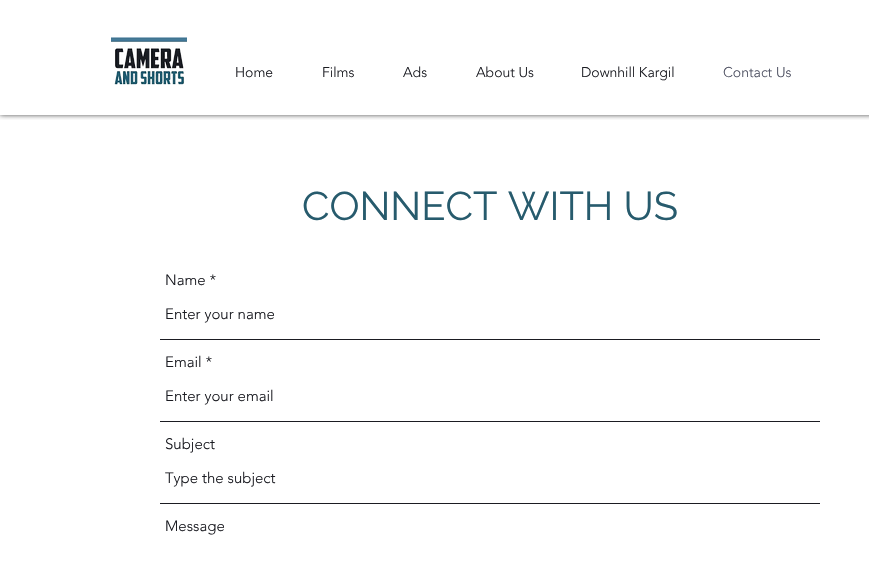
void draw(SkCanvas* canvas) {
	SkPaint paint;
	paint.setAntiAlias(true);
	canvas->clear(0xffffffff);
	canvas->save();
	canvas->clipRect(SkRect::MakeXYWH(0, 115, 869, 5));
	paint.setColor(0xb3000000);
	paint.setMaskFilter(SkMaskFilter::MakeBlur(kNormal_SkBlurStyle, 2.5));
	canvas->drawRect(SkRect::MakeXYWH(0, 0, 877, 115), paint);
	paint.setMaskFilter(nullptr);
	canvas->restore();
	canvas->drawImageRect(SkImages::DeferredFromEncodedData(SkData::MakeFromFileName("img1.png")), SkRect::MakeXYWH(111, 37, 76, 48), SkSamplingOptions());
	SkFont f1(fontMgr->matchFamilyStyle("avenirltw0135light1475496", SkFontStyle(300, SkFontStyle::kNormal_Width, SkFontStyle::kUpright_Slant)), 14);
	f1.setSubpixel(true);
	paint.setColor(0xff1b1c22);
	canvas->drawString("Home", 235, 77, f1, paint);
	canvas->drawString("Films", 322, 77, f1, paint);
	canvas->drawString("Ads", 403, 77, f1, paint);
	canvas->drawString("About Us", 476, 77, f1, paint);
	canvas->drawString("Downhill Kargil", 581, 77, f1, paint);
	paint.setColor(0xff4d5061);
	canvas->drawString("Contact Us", 723, 77, f1, paint);
	SkFont f2(fontMgr->matchFamilyStyle("Raleway", SkFontStyle::Normal()), 40);
	f2.setSubpixel(true);
	paint.setColor(0xff275b6d);
	canvas->drawString("CONNECT WITH US", 302, 220, f2, paint);
	SkFont f3(fontMgr->matchFamilyStyle("avenirltw0135light1475496", SkFontStyle(300, SkFontStyle::kNormal_Width, SkFontStyle::kUpright_Slant)), 15);
	f3.setSubpixel(true);
	paint.setColor(0xff1b1c22);
	canvas->drawString("Name *", 165, 285, f3, paint);
	canvas->drawRect(SkRect::MakeXYWH(160, 339, 660, 1), paint);
	canvas->drawString("Enter your name", 165, 319, f3, paint);
	canvas->drawString("Email *", 165, 367, f3, paint);
	canvas->drawRect(SkRect::MakeXYWH(160, 421, 660, 1), paint);
	canvas->drawString("Enter your email", 165, 401, f3, paint);
	canvas->drawString("Subject", 165, 449, f3, paint);
	canvas->drawRect(SkRect::MakeXYWH(160, 503, 660, 1), paint);
	canvas->drawString("Type the subject", 165, 483, f3, paint);
	canvas->drawString("Message", 165, 531, f3, paint);
}
